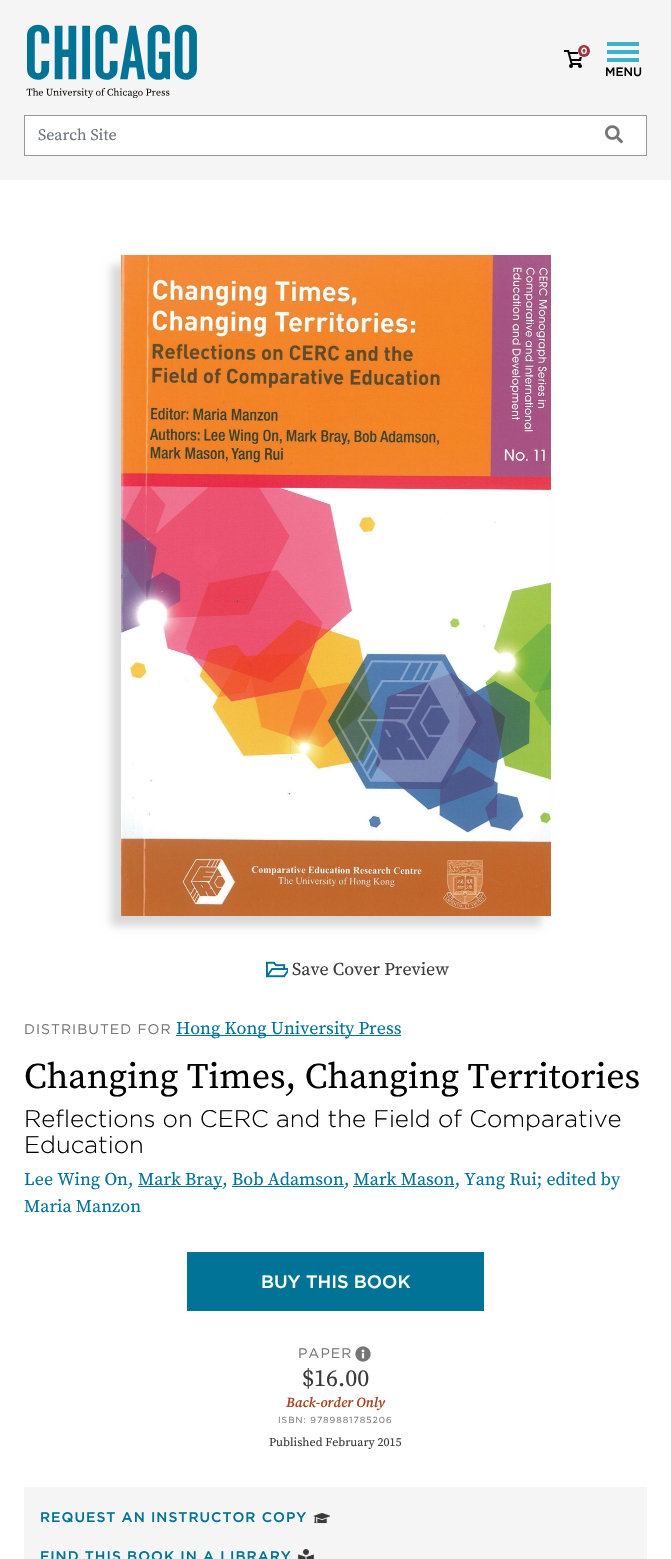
void draw(SkCanvas* canvas) {
	SkPaint paint;
	paint.setAntiAlias(true);
	auto spacedText = [&](const char* s, float x, float y, const SkFont& font, const SkPaint& ink, float letter, float word) {
		std::vector<SkGlyphID> glyphs(font.countText(s, strlen(s), SkTextEncoding::kUTF8));
		std::vector<float> xs(glyphs.size());
		font.textToGlyphs(s, strlen(s), SkTextEncoding::kUTF8, glyphs);
		font.getXPos(glyphs, xs, x);
		float extra = 0;
		for (size_t i = 0; i < glyphs.size(); i++) {
			xs[i] += extra;
			extra += letter + word * (glyphs[i] == font.unicharToGlyph(' '));
		}
		canvas->drawTextBlob(SkTextBlob::MakeFromPosHGlyphs(glyphs, xs, y, font), 0, 0, ink);
	};
	canvas->clear(0xffffffff);
	paint.setColor(0xfff5f5f5);
	canvas->drawRect(SkRect::MakeXYWH(0, 0, 671, 180), paint);
	canvas->drawImageRect(SkImages::DeferredFromEncodedData(SkData::MakeFromFileName("img1.png")), SkRect::MakeXYWH(26, 24, 171, 74), SkSamplingOptions());
	canvas->drawImageRect(SkImages::DeferredFromEncodedData(SkData::MakeFromFileName("img2.png")), SkRect::MakeXYWH(564, 50, 18, 18), SkSamplingOptions());
	canvas->drawImageRect(SkImages::DeferredFromEncodedData(SkData::MakeFromFileName("img3.png")), SkRect::MakeXYWH(578, 44, 12, 13), SkSamplingOptions());
	paint.setColor(0xff3eb1c8);
	canvas->drawRect(SkRect::MakeXYWH(607, 50, 32, 4), paint);
	canvas->drawRect(SkRect::MakeXYWH(607, 42, 32, 4), paint);
	canvas->drawRect(SkRect::MakeXYWH(607, 58, 32, 4), paint);
	SkFont f1(fontMgr->matchFamilyStyle("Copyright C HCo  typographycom", SkFontStyle(300, SkFontStyle::kNormal_Width, SkFontStyle::kUpright_Slant)), 12);
	f1.setSubpixel(true);
	paint.setColor(0xff000000);
	canvas->drawString("MENU", 605, 76, f1, paint);
	paint.setColor(0xffffffff);
	canvas->drawRect(SkRect::MakeXYWH(24.5, 115.5, 622, 40), paint);
	paint.setStroke(true);
	paint.setStrokeWidth(1);
	paint.setColor(0xff979797);
	canvas->drawRect(SkRect::MakeXYWH(24.5, 115.5, 622, 40), paint);
	SkFont f2(fontMgr->matchFamilyStyle("Source Serif Pro", SkFontStyle::Normal()), 16);
	f2.setSubpixel(true);
	paint.setStroke(false);
	paint.setColor(0xff6c757d);
	canvas->drawString("Search Site", 38, 140, f2, paint);
	canvas->drawImageRect(SkImages::DeferredFromEncodedData(SkData::MakeFromFileName("img4.png")), SkRect::MakeXYWH(605, 125, 18, 19), SkSamplingOptions());
	paint.setColor(0x26000000);
	paint.setMaskFilter(SkMaskFilter::MakeBlur(kNormal_SkBlurStyle, 4));
	canvas->drawRect(SkRect::MakeXYWH(111, 265, 430, 661), paint);
	paint.setMaskFilter(nullptr);
	canvas->drawImageRect(SkImages::DeferredFromEncodedData(SkData::MakeFromFileName("img5.png")), SkRect::MakeXYWH(121, 255, 430, 661), SkSamplingOptions());
	canvas->drawImageRect(SkImages::DeferredFromEncodedData(SkData::MakeFromFileName("img6.png")), SkRect::MakeXYWH(266, 961, 22, 17), SkSamplingOptions());
	SkFont f3(fontMgr->matchFamilyStyle("Source Serif Pro", SkFontStyle::Normal()), 18);
	f3.setSubpixel(true);
	paint.setColor(0xff3a3a3a);
	canvas->drawString("Save Cover Preview", 292, 975, f3, paint);
	SkFont f4(fontMgr->matchFamilyStyle("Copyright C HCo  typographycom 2", SkFontStyle(300, SkFontStyle::kNormal_Width, SkFontStyle::kUpright_Slant)), 14);
	f4.setSubpixel(true);
	paint.setColor(0xff757575);
	spacedText("DISTRIBUTED FOR", 24, 1034, f4, paint, 1, 0);
	paint.setColor(0xff007396);
	canvas->drawRect(SkRect::MakeXYWH(176, 1035, 225, 1), paint);
	canvas->drawString("Hong Kong University Press", 176, 1034, f3, paint);
	SkFont f5(fontMgr->matchFamilyStyle("Source Serif Pro", SkFontStyle::Normal()), 36);
	f5.setSubpixel(true);
	paint.setColor(0xff000000);
	canvas->drawString("Changing Times, Changing Territories", 24, 1088, f5, paint);
	SkFont f6(fontMgr->matchFamilyStyle("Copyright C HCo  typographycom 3", SkFontStyle(300, SkFontStyle::kNormal_Width, SkFontStyle::kUpright_Slant)), 24);
	f6.setSubpixel(true);
	canvas->drawString("Reflections on CERC and the Field of Comparative", 24, 1127, f6, paint);
	canvas->drawString("Education", 24, 1153, f6, paint);
	paint.setColor(0xff007396);
	canvas->drawString("Lee Wing On,", 24, 1185, f3, paint);
	canvas->drawRect(SkRect::MakeXYWH(138, 1186, 84, 1), paint);
	canvas->drawString("Mark Bray, Bob Adamson", 138, 1185, f3, paint);
	canvas->drawRect(SkRect::MakeXYWH(232, 1186, 112, 1), paint);
	canvas->drawString(", Mark Mason, Yang Rui; edited by", 344, 1185, f3, paint);
	canvas->drawRect(SkRect::MakeXYWH(353, 1186, 101, 1), paint);
	canvas->drawString("Maria Manzon", 24, 1212, f3, paint);
	canvas->drawRect(SkRect::MakeXYWH(187, 1252, 297, 59), paint);
	SkFont f7(fontMgr->matchFamilyStyle("Copyright C HCo  typographycom", SkFontStyle(300, SkFontStyle::kNormal_Width, SkFontStyle::kUpright_Slant)), 18);
	f7.setSubpixel(true);
	paint.setColor(0xffffffff);
	canvas->drawString("BUY THIS BOOK", 261, 1288, f7, paint);
	paint.setColor(0xff757575);
	spacedText("PAPER", 298, 1358, f4, paint, 1, 0);
	canvas->drawImageRect(SkImages::DeferredFromEncodedData(SkData::MakeFromFileName("img7.png")), SkRect::MakeXYWH(355, 1346, 16, 16), SkSamplingOptions());
	SkFont f8(fontMgr->matchFamilyStyle("Source Serif Pro", SkFontStyle::Normal()), 24);
	f8.setSubpixel(true);
	paint.setColor(0xff3a3a3a);
	canvas->drawString("$16.00", 302, 1386, f8, paint);
	SkFont f9(fontMgr->matchFamilyStyle("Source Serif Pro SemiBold", SkFontStyle(600, SkFontStyle::kNormal_Width, SkFontStyle::kItalic_Slant)), 14);
	f9.setSubpixel(true);
	paint.setColor(0xffa9431e);
	canvas->drawString("Back-order Only", 286, 1407, f9, paint);
	SkFont f10(fontMgr->matchFamilyStyle("Copyright C HCo  typographycom 2", SkFontStyle(300, SkFontStyle::kNormal_Width, SkFontStyle::kUpright_Slant)), 8.75);
	f10.setSubpixel(true);
	paint.setColor(0xff757575);
	spacedText("ISBN: 9789881785206", 278, 1423, f10, paint, 1, 0);
	SkFont f11(fontMgr->matchFamilyStyle("Source Serif Pro", SkFontStyle::Normal()), 12);
	f11.setSubpixel(true);
	paint.setColor(0xff3a3a3a);
	canvas->drawString("Published February 2015", 269, 1446, f11, paint);
	paint.setColor(0xfff5f5f5);
	canvas->drawRect(SkRect::MakeXYWH(24, 1487, 623, 72), paint);
	SkFont f12(fontMgr->matchFamilyStyle("Copyright C HCo  typographycom", SkFontStyle(300, SkFontStyle::kNormal_Width, SkFontStyle::kUpright_Slant)), 14);
	f12.setSubpixel(true);
	paint.setColor(0xff007396);
	spacedText("REQUEST AN INSTRUCTOR COPY", 40, 1522, f12, paint, 1, 0);
	canvas->drawImageRect(SkImages::DeferredFromEncodedData(SkData::MakeFromFileName("img8.png")), SkRect::MakeXYWH(313, 1513, 17, 11), SkSamplingOptions());
	spacedText("FIND THIS BOOK IN A LIBRARY", 40, 1561, f12, paint, 1, 0);
	canvas->drawImageRect(SkImages::DeferredFromEncodedData(SkData::MakeFromFileName("img9.png")), SkRect::MakeXYWH(298, 1549, 16, 10), SkSamplingOptions());
}
